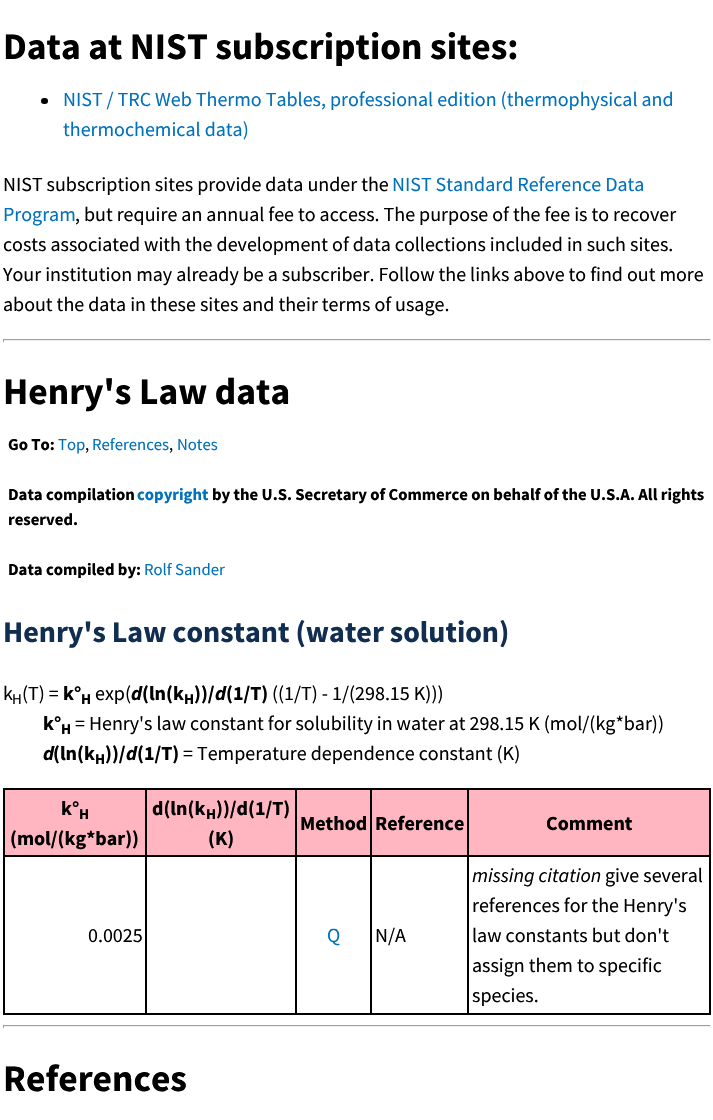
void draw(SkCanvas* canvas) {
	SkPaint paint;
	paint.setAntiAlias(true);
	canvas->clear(0xffffffff);
	SkFont f1(fontMgr->matchFamilyStyle("Source Sans Pro", SkFontStyle::Bold()), 37.5);
	f1.setSubpixel(true);
	paint.setColor(0xff000000);
	canvas->drawString("Data at NIST subscription sites:", 3, 59, f1, paint);
	canvas->drawRoundRect(SkRect::MakeXYWH(41, 98, 7, 6), 3, 3, paint);
	SkFont f2(fontMgr->matchFamilyStyle("Source Sans Pro", SkFontStyle::Normal()), 20);
	f2.setSubpixel(true);
	paint.setColor(0xff0071bc);
	canvas->drawString("NIST / TRC Web Thermo Tables, professional edition (thermophysical and", 63, 106, f2, paint);
	canvas->drawString("thermochemical data)", 63, 136, f2, paint);
	paint.setColor(0xff000000);
	canvas->drawString("NIST subscription sites provide data under the", 3, 191, f2, paint);
	paint.setColor(0xff0071bc);
	canvas->drawString("NIST Standard Reference Data", 392, 191, f2, paint);
	canvas->drawString("Program", 3, 221, f2, paint);
	paint.setColor(0xff000000);
	canvas->drawString(", but require an annual fee to access. The purpose of the fee is to recover", 75, 221, f2, paint);
	canvas->drawString("costs associated with the development of data collections included in such sites.", 3, 251, f2, paint);
	canvas->drawString("Your institution may already be a subscriber. Follow the links above to find out more", 3, 281, f2, paint);
	canvas->drawString("about the data in these sites and their terms of usage.", 3, 311, f2, paint);
	paint.setColor(0xff9f9f9f);
	canvas->drawRect(SkRect::MakeXYWH(3, 339, 708, 1), paint);
	paint.setColor(0xffeeeeee);
	canvas->drawRect(SkRect::MakeXYWH(710, 339, 1, 3), paint);
	canvas->drawRect(SkRect::MakeXYWH(3, 340, 708, 1), paint);
	paint.setColor(0xff9f9f9f);
	canvas->drawRect(SkRect::MakeXYWH(3, 339, 1, 3), paint);
	paint.setColor(0xff000000);
	canvas->drawString("Henry's Law data", 3, 404, f1, paint);
	SkFont f3(fontMgr->matchFamilyStyle("Source Sans Pro", SkFontStyle::Bold()), 16.7);
	f3.setSubpixel(true);
	canvas->drawString("Go To:", 8, 450, f3, paint);
	SkFont f4(fontMgr->matchFamilyStyle("Source Sans Pro", SkFontStyle::Normal()), 16.7);
	f4.setSubpixel(true);
	paint.setColor(0xff0071bc);
	canvas->drawString("Top", 58, 450, f4, paint);
	paint.setColor(0xff000000);
	canvas->drawString(",", 85, 450, f4, paint);
	paint.setColor(0xff0071bc);
	canvas->drawString("References", 92, 450, f4, paint);
	paint.setColor(0xff000000);
	canvas->drawString(",", 169, 450, f4, paint);
	paint.setColor(0xff0071bc);
	canvas->drawString("Notes", 177, 450, f4, paint);
	paint.setColor(0xff000000);
	canvas->drawString("Data compilation", 8, 500, f3, paint);
	paint.setColor(0xff0071bc);
	canvas->drawString("copyright", 137, 500, f3, paint);
	paint.setColor(0xff000000);
	canvas->drawString("by the U.S. Secretary of Commerce on behalf of the U.S.A. All rights", 212, 500, f3, paint);
	canvas->drawString("reserved.", 8, 525, f3, paint);
	canvas->drawString("Data compiled by:", 8, 575, f3, paint);
	paint.setColor(0xff0071bc);
	canvas->drawString("Rolf Sander", 144, 575, f4, paint);
	SkFont f5(fontMgr->matchFamilyStyle("Source Sans Pro", SkFontStyle::Bold()), 30);
	f5.setSubpixel(true);
	paint.setColor(0xff112e51);
	canvas->drawString("Henry's Law constant (water solution)", 3, 642, f5, paint);
	paint.setColor(0xff000000);
	canvas->drawString("k", 3, 700, f2, paint);
	SkFont f6(fontMgr->matchFamilyStyle("Source Sans Pro", SkFontStyle::Normal()), 15);
	f6.setSubpixel(true);
	canvas->drawString("H", 12, 704, f6, paint);
	canvas->drawString("(T) =", 22, 700, f2, paint);
	SkFont f7(fontMgr->matchFamilyStyle("Source Sans Pro", SkFontStyle::Bold()), 20);
	f7.setSubpixel(true);
	canvas->drawString("k°", 63, 700, f7, paint);
	SkFont f8(fontMgr->matchFamilyStyle("Source Sans Pro", SkFontStyle::Bold()), 15);
	f8.setSubpixel(true);
	canvas->drawString("H", 81, 704, f8, paint);
	canvas->drawString("exp(", 95, 700, f2, paint);
	SkFont f9(fontMgr->matchFamilyStyle("Source Sans Pro", SkFontStyle::BoldItalic()), 20);
	f9.setSubpixel(true);
	canvas->drawString("d", 131, 700, f9, paint);
	canvas->drawString("(ln(k", 142, 700, f7, paint);
	canvas->drawString("H", 184, 704, f8, paint);
	canvas->drawString("))/", 194, 700, f7, paint);
	canvas->drawString("d", 215, 700, f9, paint);
	canvas->drawString("(1/T)", 226, 700, f7, paint);
	canvas->drawString("((1/T) - 1/(298.15 K)))", 272, 700, f2, paint);
	canvas->drawString("k°", 43, 730, f7, paint);
	canvas->drawString("H", 61, 734, f8, paint);
	canvas->drawString("= Henry's law constant for solubility in water at 298.15 K (mol/(kg*bar))", 75, 730, f2, paint);
	canvas->drawString("d", 43, 760, f9, paint);
	canvas->drawString("(ln(k", 53, 760, f7, paint);
	canvas->drawString("H", 95, 764, f8, paint);
	canvas->drawString("))/", 105, 760, f7, paint);
	canvas->drawString("d", 126, 760, f9, paint);
	canvas->drawString("(1/T)", 137, 760, f7, paint);
	canvas->drawString("= Temperature dependence constant (K)", 183, 760, f2, paint);
	paint.setStroke(true);
	paint.setStrokeWidth(1);
	canvas->drawRect(SkRect::MakeXYWH(3.5, 788.5, 707, 226), paint);
	paint.setStroke(false);
	paint.setColor(0xffffb6c1);
	canvas->drawRect(SkRect::MakeXYWH(4.5, 789.5, 141, 66), paint);
	paint.setStroke(true);
	paint.setColor(0xff000000);
	canvas->drawRect(SkRect::MakeXYWH(4.5, 789.5, 141, 66), paint);
	paint.setStroke(false);
	canvas->drawString("k°", 61, 815, f7, paint);
	canvas->drawString("H", 79, 819, f8, paint);
	canvas->drawString("(mol/(kg*bar))", 10, 845, f7, paint);
	paint.setColor(0xffffb6c1);
	canvas->drawRect(SkRect::MakeXYWH(146.5, 789.5, 149, 66), paint);
	paint.setStroke(true);
	paint.setColor(0xff000000);
	canvas->drawRect(SkRect::MakeXYWH(146.5, 789.5, 149, 66), paint);
	paint.setStroke(false);
	canvas->drawString("d(ln(k", 152, 815, f7, paint);
	canvas->drawString("H", 206, 819, f8, paint);
	canvas->drawString("))/d(1/T)", 216, 815, f7, paint);
	canvas->drawString("(K)", 208, 845, f7, paint);
	paint.setColor(0xffffb6c1);
	canvas->drawRect(SkRect::MakeXYWH(296.5, 789.5, 74, 66), paint);
	paint.setStroke(true);
	paint.setColor(0xff000000);
	canvas->drawRect(SkRect::MakeXYWH(296.5, 789.5, 74, 66), paint);
	paint.setStroke(false);
	canvas->drawString("Method", 300, 830, f7, paint);
	paint.setColor(0xffffb6c1);
	canvas->drawRect(SkRect::MakeXYWH(371.5, 789.5, 96, 66), paint);
	paint.setStroke(true);
	paint.setColor(0xff000000);
	canvas->drawRect(SkRect::MakeXYWH(371.5, 789.5, 96, 66), paint);
	paint.setStroke(false);
	canvas->drawString("Reference", 375, 830, f7, paint);
	paint.setColor(0xffffb6c1);
	canvas->drawRect(SkRect::MakeXYWH(468.5, 789.5, 241, 66), paint);
	paint.setStroke(true);
	paint.setColor(0xff000000);
	canvas->drawRect(SkRect::MakeXYWH(468.5, 789.5, 241, 66), paint);
	paint.setStroke(false);
	canvas->drawString("Comment", 546, 830, f7, paint);
	paint.setStroke(true);
	canvas->drawRect(SkRect::MakeXYWH(4.5, 856.5, 141, 157), paint);
	paint.setStroke(false);
	canvas->drawString("0.0025", 88, 942, f2, paint);
	paint.setStroke(true);
	canvas->drawRect(SkRect::MakeXYWH(146.5, 856.5, 149, 157), paint);
	canvas->drawRect(SkRect::MakeXYWH(296.5, 856.5, 74, 157), paint);
	paint.setStroke(false);
	paint.setColor(0xff0071bc);
	canvas->drawString("Q", 327, 942, f2, paint);
	paint.setStroke(true);
	paint.setColor(0xff000000);
	canvas->drawRect(SkRect::MakeXYWH(371.5, 856.5, 96, 157), paint);
	paint.setStroke(false);
	canvas->drawString("N/A", 375, 942, f2, paint);
	paint.setStroke(true);
	canvas->drawRect(SkRect::MakeXYWH(468.5, 856.5, 241, 157), paint);
	SkFont f10(fontMgr->matchFamilyStyle("Source Sans Pro", SkFontStyle::Italic()), 20);
	f10.setSubpixel(true);
	paint.setStroke(false);
	canvas->drawString("missing citation", 472, 882, f10, paint);
	canvas->drawString("give several", 605, 882, f2, paint);
	canvas->drawString("references for the Henry's", 472, 912, f2, paint);
	canvas->drawString("law constants but don't", 472, 942, f2, paint);
	canvas->drawString("assign them to specific", 472, 972, f2, paint);
	canvas->drawString("species.", 472, 1002, f2, paint);
	paint.setColor(0xff9f9f9f);
	canvas->drawRect(SkRect::MakeXYWH(3, 1025, 708, 1), paint);
	paint.setColor(0xffeeeeee);
	canvas->drawRect(SkRect::MakeXYWH(710, 1025, 1, 3), paint);
	canvas->drawRect(SkRect::MakeXYWH(3, 1026, 708, 1), paint);
	paint.setColor(0xff9f9f9f);
	canvas->drawRect(SkRect::MakeXYWH(3, 1025, 1, 3), paint);
	paint.setColor(0xff000000);
	canvas->drawString("References", 3, 1091, f1, paint);
}
